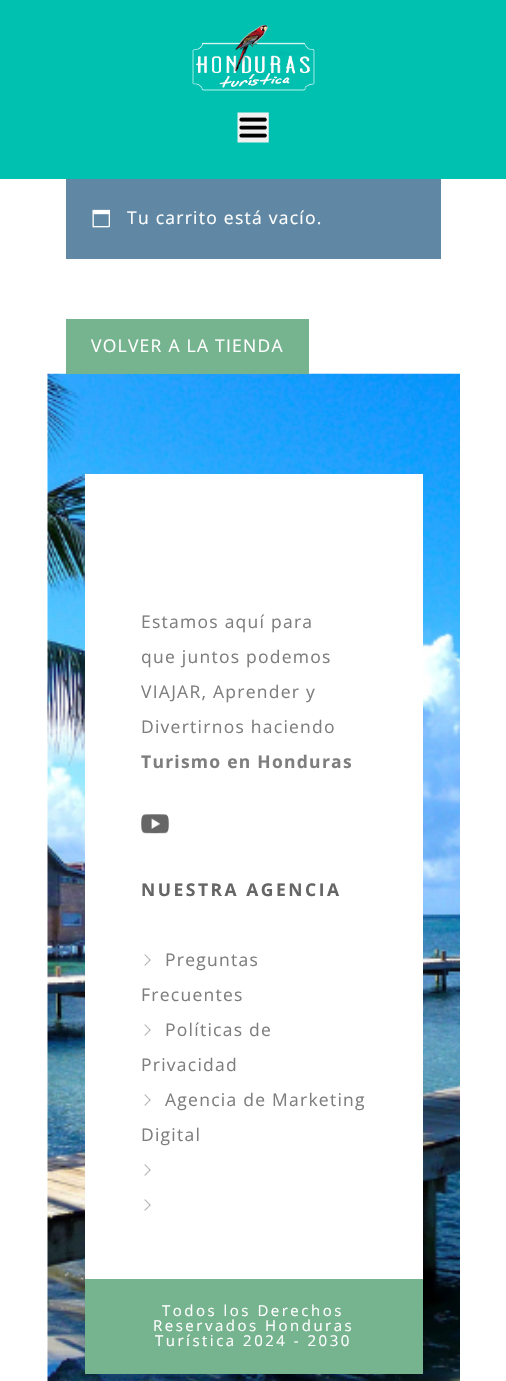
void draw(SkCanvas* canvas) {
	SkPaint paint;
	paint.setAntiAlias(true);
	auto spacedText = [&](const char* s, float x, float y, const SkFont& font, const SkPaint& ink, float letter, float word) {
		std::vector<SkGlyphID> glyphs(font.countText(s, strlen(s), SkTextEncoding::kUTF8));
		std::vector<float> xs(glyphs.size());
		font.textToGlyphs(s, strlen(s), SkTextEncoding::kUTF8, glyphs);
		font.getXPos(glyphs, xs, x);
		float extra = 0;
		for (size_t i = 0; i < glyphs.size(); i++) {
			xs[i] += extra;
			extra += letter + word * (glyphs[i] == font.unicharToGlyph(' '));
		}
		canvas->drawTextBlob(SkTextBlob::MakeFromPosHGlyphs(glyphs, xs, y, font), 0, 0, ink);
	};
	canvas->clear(0xffffffff);
	paint.setColor(0xff00c0af);
	canvas->drawRect(SkRect::MakeXYWH(0, 0, 506, 179), paint);
	canvas->drawImageRect(SkImages::DeferredFromEncodedData(SkData::MakeFromFileName("img1.png")), SkRect::MakeXYWH(192, 25, 124, 66), SkSamplingOptions());
	canvas->drawImageRect(SkImages::DeferredFromEncodedData(SkData::MakeFromFileName("img2.png")), SkRect::MakeXYWH(237, 112, 32, 31), SkSamplingOptions());
	paint.setColor(0xff6088a4);
	canvas->drawRect(SkRect::MakeXYWH(66, 179, 375, 80), paint);
	canvas->drawImageRect(SkImages::DeferredFromEncodedData(SkData::MakeFromFileName("img3.png")), SkRect::MakeXYWH(92, 209, 18, 19), SkSamplingOptions());
	SkFont f1(fontMgr->matchFamilyStyle("Open Sans", SkFontStyle::Normal()), 17.5);
	f1.setSubpixel(true);
	paint.setColor(0xffffffff);
	spacedText("Tu carrito está vacío.", 127, 224, f1, paint, 1.25, 0);
	canvas->drawImageRect(SkImages::DeferredFromEncodedData(SkData::MakeFromFileName("img4.png")), SkRect::MakeXYWH(47, 373, 413, 1008), SkSamplingOptions());
	paint.setColor(0xff76b38f);
	canvas->drawRect(SkRect::MakeXYWH(66, 319, 243, 55), paint);
	paint.setColor(0xffffffff);
	spacedText("VOLVER A LA TIENDA", 91, 352, f1, paint, 1.25, 0);
	canvas->drawRect(SkRect::MakeXYWH(85, 474, 338, 805), paint);
	paint.setColor(0xff7e7e7e);
	spacedText("Estamos aquí para", 141, 628, f1, paint, 1.25, 0);
	spacedText("que juntos podemos", 141, 663, f1, paint, 1.25, 0);
	spacedText("VIAJAR, Aprender y", 141, 698, f1, paint, 1.25, 0);
	spacedText("Divertirnos haciendo", 141, 733, f1, paint, 1.25, 0);
	SkFont f2(fontMgr->matchFamilyStyle("Open Sans", SkFontStyle::Bold()), 17.5);
	f2.setSubpixel(true);
	spacedText("Turismo en Honduras", 141, 768, f2, paint, 1.25, 0);
	canvas->drawImageRect(SkImages::DeferredFromEncodedData(SkData::MakeFromFileName("img5.png")), SkRect::MakeXYWH(141, 814, 28, 20), SkSamplingOptions());
	paint.setColor(0xff666666);
	spacedText("NUESTRA AGENCIA", 141, 896, f2, paint, 2.5, 0);
	canvas->drawImageRect(SkImages::DeferredFromEncodedData(SkData::MakeFromFileName("img6.png")), SkRect::MakeXYWH(144, 954, 7, 12), SkSamplingOptions());
	paint.setColor(0xff7e7e7e);
	spacedText("Preguntas", 165, 966, f1, paint, 1.25, 0);
	spacedText("Frecuentes", 141, 1001, f1, paint, 1.25, 0);
	canvas->drawImageRect(SkImages::DeferredFromEncodedData(SkData::MakeFromFileName("img6.png")), SkRect::MakeXYWH(144, 1024, 7, 12), SkSamplingOptions());
	spacedText("Políticas de", 165, 1036, f1, paint, 1.25, 0);
	spacedText("Privacidad", 141, 1071, f1, paint, 1.25, 0);
	canvas->drawImageRect(SkImages::DeferredFromEncodedData(SkData::MakeFromFileName("img6.png")), SkRect::MakeXYWH(144, 1094, 7, 12), SkSamplingOptions());
	spacedText("Agencia de Marketing", 165, 1106, f1, paint, 1.25, 0);
	spacedText("Digital", 141, 1141, f1, paint, 1.25, 0);
	canvas->drawImageRect(SkImages::DeferredFromEncodedData(SkData::MakeFromFileName("img6.png")), SkRect::MakeXYWH(144, 1164, 7, 12), SkSamplingOptions());
	canvas->drawImageRect(SkImages::DeferredFromEncodedData(SkData::MakeFromFileName("img6.png")), SkRect::MakeXYWH(144, 1199, 7, 12), SkSamplingOptions());
	paint.setColor(0xff76b38f);
	canvas->drawRect(SkRect::MakeXYWH(85, 1279, 338, 95), paint);
	SkFont f3(fontMgr->matchFamilyStyle("Open Sans", SkFontStyle::Normal()), 15);
	f3.setSubpixel(true);
	paint.setColor(0xffffffff);
	spacedText("Todos los Derechos", 162, 1316, f3, paint, 2.5, 0);
	spacedText("Reservados Honduras", 153, 1331, f3, paint, 2.5, 0);
	spacedText("Turística 2024 - 2030", 155, 1346, f3, paint, 2.5, 0);
}
